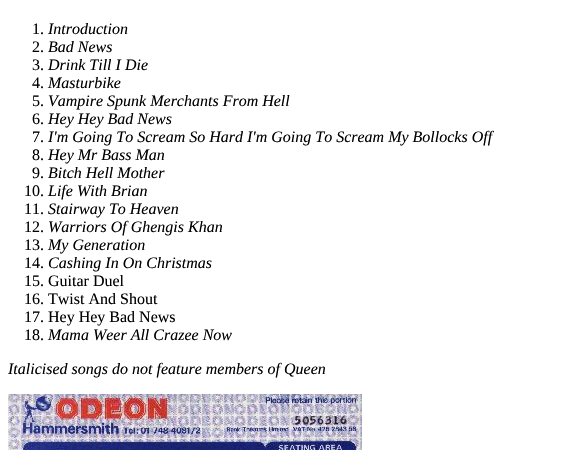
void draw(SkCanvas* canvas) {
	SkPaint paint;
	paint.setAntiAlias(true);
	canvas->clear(0xffffffff);
	SkFont f1(fontMgr->matchFamilyStyle("Liberation Serif", SkFontStyle::Normal()), 16);
	f1.setSubpixel(true);
	paint.setColor(0xff000000);
	canvas->drawString("1.", 32, 34, f1, paint);
	SkFont f2(fontMgr->matchFamilyStyle("Liberation Serif", SkFontStyle::Italic()), 16);
	f2.setSubpixel(true);
	canvas->drawString("Introduction", 48, 34, f2, paint);
	canvas->drawString("2.", 32, 52, f1, paint);
	canvas->drawString("Bad News", 48, 52, f2, paint);
	canvas->drawString("3.", 32, 70, f1, paint);
	canvas->drawString("Drink Till I Die", 48, 70, f2, paint);
	canvas->drawString("4.", 32, 88, f1, paint);
	canvas->drawString("Masturbike", 48, 88, f2, paint);
	canvas->drawString("5.", 32, 106, f1, paint);
	canvas->drawString("Vampire Spunk Merchants From Hell", 48, 106, f2, paint);
	canvas->drawString("6.", 32, 124, f1, paint);
	canvas->drawString("Hey Hey Bad News", 48, 124, f2, paint);
	canvas->drawString("7.", 32, 142, f1, paint);
	canvas->drawString("I'm Going To Scream So Hard I'm Going To Scream My Bollocks Off", 48, 142, f2, paint);
	canvas->drawString("8.", 32, 160, f1, paint);
	canvas->drawString("Hey Mr Bass Man", 48, 160, f2, paint);
	canvas->drawString("9.", 32, 178, f1, paint);
	canvas->drawString("Bitch Hell Mother", 48, 178, f2, paint);
	canvas->drawString("10.", 24, 196, f1, paint);
	canvas->drawString("Life With Brian", 48, 196, f2, paint);
	canvas->drawString("11.", 24, 214, f1, paint);
	canvas->drawString("Stairway To Heaven", 48, 214, f2, paint);
	canvas->drawString("12.", 24, 232, f1, paint);
	canvas->drawString("Warriors Of Ghengis Khan", 48, 232, f2, paint);
	canvas->drawString("13.", 24, 250, f1, paint);
	canvas->drawString("My Generation", 48, 250, f2, paint);
	canvas->drawString("14.", 24, 268, f1, paint);
	canvas->drawString("Cashing In On Christmas", 48, 268, f2, paint);
	canvas->drawString("15. Guitar Duel", 24, 286, f1, paint);
	canvas->drawString("16. Twist And Shout", 24, 304, f1, paint);
	canvas->drawString("17. Hey Hey Bad News", 24, 322, f1, paint);
	canvas->drawString("18.", 24, 340, f1, paint);
	canvas->drawString("Mama Weer All Crazee Now", 48, 340, f2, paint);
	canvas->drawString("Italicised songs do not feature members of Queen", 8, 374, f2, paint);
	canvas->drawImageRect(SkImages::DeferredFromEncodedData(SkData::MakeFromFileName("img1.png")), SkRect::MakeXYWH(8, 394, 354, 56), SkSamplingOptions());
}
